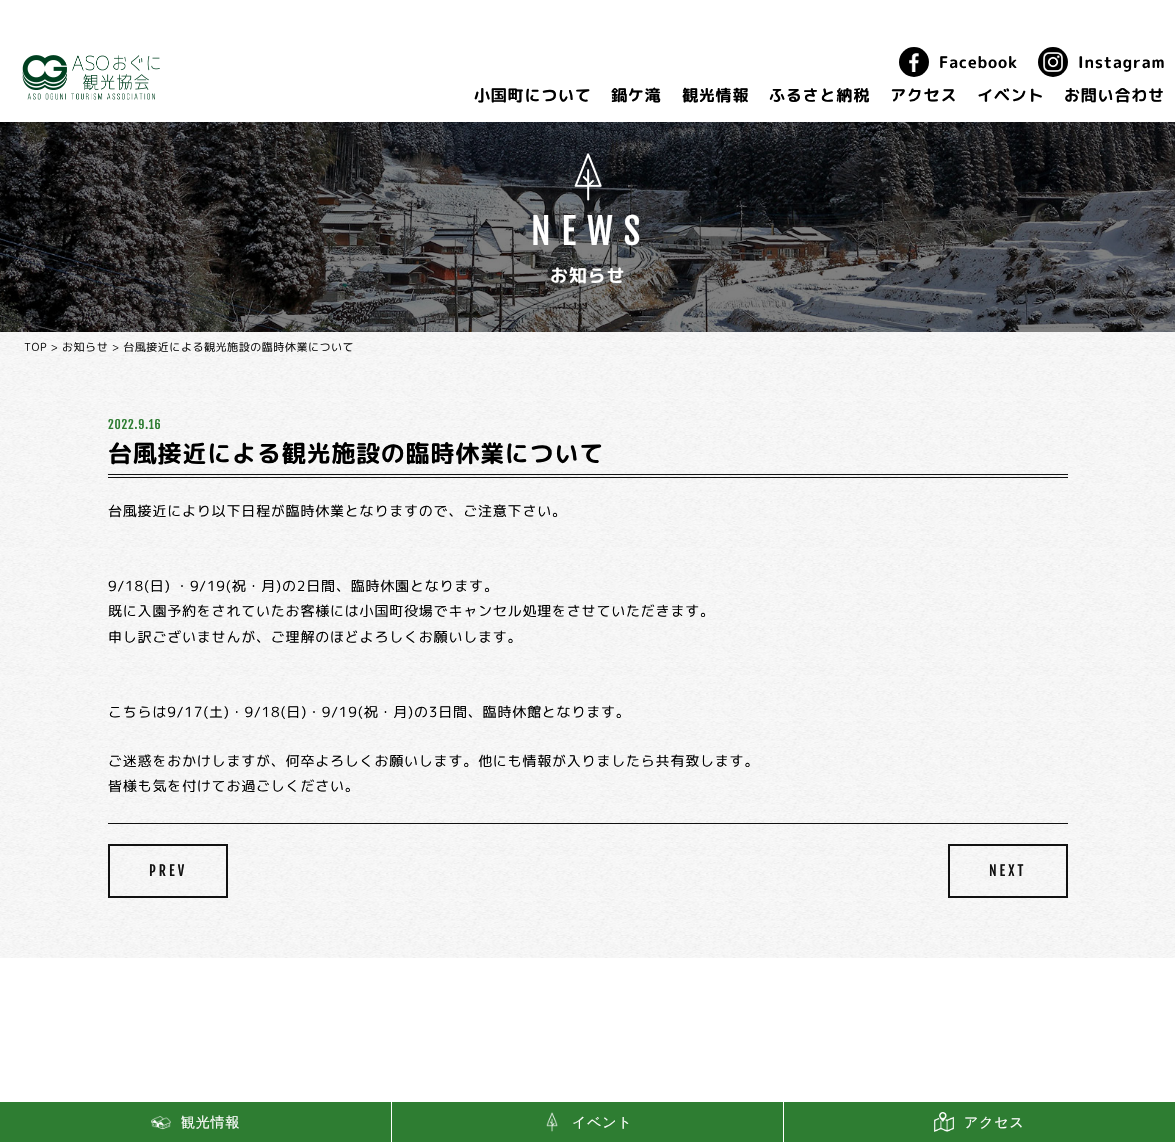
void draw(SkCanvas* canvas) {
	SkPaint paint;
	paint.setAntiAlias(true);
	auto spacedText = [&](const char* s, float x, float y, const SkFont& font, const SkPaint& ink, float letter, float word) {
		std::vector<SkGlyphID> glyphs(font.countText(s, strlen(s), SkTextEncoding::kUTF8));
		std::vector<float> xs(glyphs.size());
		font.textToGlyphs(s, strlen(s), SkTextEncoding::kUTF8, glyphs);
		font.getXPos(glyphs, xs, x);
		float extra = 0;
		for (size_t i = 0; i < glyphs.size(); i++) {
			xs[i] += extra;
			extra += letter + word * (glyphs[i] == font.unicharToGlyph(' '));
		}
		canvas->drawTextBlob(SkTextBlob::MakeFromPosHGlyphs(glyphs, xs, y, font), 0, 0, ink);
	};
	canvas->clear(0xffffffff);
	canvas->drawImageRect(SkImages::DeferredFromEncodedData(SkData::MakeFromFileName("img1.png")), SkRect::MakeXYWH(22, 55, 138, 45), SkSamplingOptions());
	paint.setColor(0xff000000);
	canvas->drawCircle(914, 62, 15, paint);
	canvas->drawImageRect(SkImages::DeferredFromEncodedData(SkData::MakeFromFileName("img2.png")), SkRect::MakeXYWH(909, 53, 10, 19), SkSamplingOptions());
	SkFont f1(fontMgr->matchFamilyStyle("Rounded Mplus 1c", SkFontStyle::Bold()), 16);
	f1.setSubpixel(true);
	spacedText("Facebook", 939, 68, f1, paint, 0.8, 0);
	canvas->drawCircle(1053, 62, 15, paint);
	canvas->drawImageRect(SkImages::DeferredFromEncodedData(SkData::MakeFromFileName("img3.png")), SkRect::MakeXYWH(1043, 52, 20, 20), SkSamplingOptions());
	spacedText("Instagram", 1078, 68, f1, paint, 0.8, 0);
	spacedText("小国町について", 474, 101, f1, paint, 0.8, 0);
	spacedText("鍋ケ滝", 611, 101, f1, paint, 0.8, 0);
	spacedText("観光情報", 682, 101, f1, paint, 0.8, 0);
	spacedText("ふるさと納税", 769, 101, f1, paint, 0.8, 0);
	spacedText("アクセス", 890, 101, f1, paint, 0.8, 0);
	spacedText("イベント", 977, 101, f1, paint, 0.8, 0);
	spacedText("お問い合わせ", 1064, 101, f1, paint, 0.8, 0);
	canvas->drawImageRect(SkImages::DeferredFromEncodedData(SkData::MakeFromFileName("img4.png")), SkRect::MakeXYWH(0, 122, 1175, 210), SkSamplingOptions());
	canvas->drawImageRect(SkImages::DeferredFromEncodedData(SkData::MakeFromFileName("img5.png")), SkRect::MakeXYWH(574, 153, 28, 48), SkSamplingOptions());
	SkFont f2(fontMgr->matchFamilyStyle("Fjalla One", SkFontStyle::Normal()), 36);
	f2.setSubpixel(true);
	paint.setColor(0xffffffff);
	spacedText("NEWS", 531, 245, f2, paint, 11, 0);
	SkFont f3(fontMgr->matchFamilyStyle("Rounded Mplus 1c", SkFontStyle::Bold()), 18);
	f3.setSubpixel(true);
	spacedText("お知らせ", 550, 282, f3, paint, 0.8, 0);
	canvas->drawImageRect(SkImages::DeferredFromEncodedData(SkData::MakeFromFileName("img6.png")), SkRect::MakeXYWH(0, 332, 1175, 626), SkSamplingOptions());
	SkFont f4(fontMgr->matchFamilyStyle("Rounded Mplus 1c", SkFontStyle::Normal()), 11);
	f4.setSubpixel(true);
	paint.setColor(0xff111111);
	spacedText("TOP > お知らせ > 台風接近による観光施設の臨時休業について", 24, 351, f4, paint, 0.55, 0);
	SkFont f5(fontMgr->matchFamilyStyle("Fjalla One", SkFontStyle::Normal()), 12);
	f5.setSubpixel(true);
	paint.setColor(0xff2e7d32);
	spacedText("2022.9.16", 108, 429, f5, paint, 0.8, 0);
	paint.setColor(0xff111111);
	canvas->drawRect(SkRect::MakeXYWH(108, 474, 960, 1), paint);
	canvas->drawRect(SkRect::MakeXYWH(108, 477, 960, 1), paint);
	SkFont f6(fontMgr->matchFamilyStyle("Rounded Mplus 1c", SkFontStyle::Bold()), 24);
	f6.setSubpixel(true);
	paint.setColor(0xff000000);
	spacedText("台風接近による観光施設の臨時休業について", 108, 462, f6, paint, 0.8, 0);
	paint.setColor(0xff111111);
	canvas->drawRect(SkRect::MakeXYWH(108, 823, 960, 1), paint);
	SkFont f7(fontMgr->matchFamilyStyle("Rounded Mplus 1c", SkFontStyle::Normal()), 14);
	f7.setSubpixel(true);
	paint.setColor(0xff000000);
	spacedText("台風接近により以下日程が臨時休業となりますので、ご注意下さい。", 108, 516, f7, paint, 0.8, 0);
	spacedText("9/18(日) ・9/19(祝・月)の2日間、臨時休園となります。", 108, 591, f7, paint, 0.8, 0);
	spacedText("既に入園予約をされていたお客様には小国町役場でキャンセル処理をさせていただきます。", 108, 616, f7, paint, 0.8, 0);
	spacedText("申し訳ございませんが、ご理解のほどよろしくお願いします。", 108, 642, f7, paint, 0.8, 0);
	spacedText("こちらは9/17(土)・9/18(日)・9/19(祝・月)の3日間、臨時休館となります。", 108, 717, f7, paint, 0.8, 0);
	spacedText("ご迷惑をおかけしますが、何卒よろしくお願いします。他にも情報が入りましたら共有致します。", 108, 766, f7, paint, 0.8, 0);
	spacedText("皆様も気を付けてお過ごしください。", 108, 791, f7, paint, 0.8, 0);
	paint.setStroke(true);
	paint.setStrokeWidth(2);
	paint.setColor(0xff111111);
	canvas->drawRect(SkRect::MakeXYWH(109, 845, 118, 52), paint);
	SkFont f8(fontMgr->matchFamilyStyle("Fjalla One", SkFontStyle::Normal()), 14);
	f8.setSubpixel(true);
	paint.setStroke(false);
	spacedText("PREV", 149, 876, f8, paint, 3, 0);
	paint.setStroke(true);
	canvas->drawRect(SkRect::MakeXYWH(949, 845, 118, 52), paint);
	paint.setStroke(false);
	spacedText("NEXT", 989, 876, f8, paint, 3, 0);
	paint.setColor(0xff2e7d32);
	canvas->drawRect(SkRect::MakeXYWH(0, 1102, 1175, 40), paint);
	canvas->drawImageRect(SkImages::DeferredFromEncodedData(SkData::MakeFromFileName("img7.png")), SkRect::MakeXYWH(151, 1116, 20, 14), SkSamplingOptions());
	SkFont f9(fontMgr->matchFamilyStyle("WenQuanYi Zen Hei", SkFontStyle(500, SkFontStyle::kNormal_Width, SkFontStyle::kUpright_Slant)), 14);
	f9.setSubpixel(true);
	paint.setColor(0xffffffff);
	spacedText("観光情報", 181, 1127, f9, paint, 0.8, 0);
	canvas->drawRect(SkRect::MakeXYWH(391, 1102, 1, 40), paint);
	canvas->drawImageRect(SkImages::DeferredFromEncodedData(SkData::MakeFromFileName("img8.png")), SkRect::MakeXYWH(546, 1112, 12, 20), SkSamplingOptions());
	spacedText("イベント", 572, 1127, f9, paint, 0.8, 0);
	canvas->drawRect(SkRect::MakeXYWH(783, 1102, 1, 40), paint);
	canvas->drawImageRect(SkImages::DeferredFromEncodedData(SkData::MakeFromFileName("img9.png")), SkRect::MakeXYWH(934, 1112, 20, 20), SkSamplingOptions());
	spacedText("アクセス", 964, 1127, f9, paint, 0.8, 0);
}
